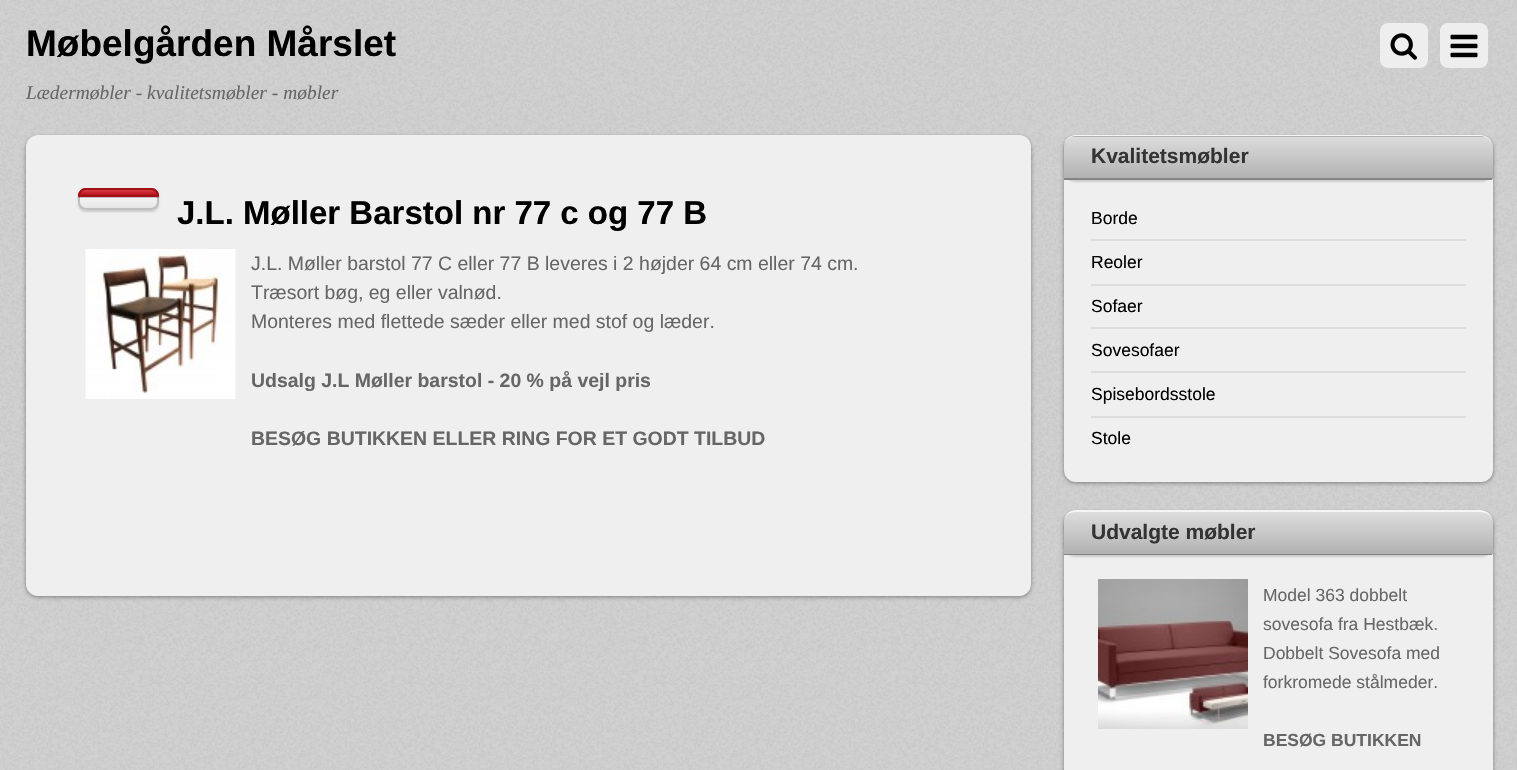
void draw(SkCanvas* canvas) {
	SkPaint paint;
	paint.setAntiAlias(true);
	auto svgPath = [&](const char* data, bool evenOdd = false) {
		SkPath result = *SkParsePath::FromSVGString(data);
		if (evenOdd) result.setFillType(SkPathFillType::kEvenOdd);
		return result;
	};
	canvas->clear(0xffffffff);
	canvas->drawImageRect(SkImages::DeferredFromEncodedData(SkData::MakeFromFileName("img1.png")), SkRect::MakeXYWH(0, 0, 1517, 770), SkSamplingOptions());
	SkFont f1(fontMgr->matchFamilyStyle("Liberation Sans", SkFontStyle::Bold()), 37);
	f1.setSubpixel(true);
	paint.setColor(0xff000000);
	canvas->drawString("Møbelgården Mårslet", 26, 56, f1, paint);
	paint.setColor(0xffeeeeee);
	canvas->drawRoundRect(SkRect::MakeXYWH(1380, 23, 48, 45), 8, 8, paint);
	canvas->drawImageRect(SkImages::DeferredFromEncodedData(SkData::MakeFromFileName("img2.png")), SkRect::MakeXYWH(1390, 33, 27, 27), SkSamplingOptions());
	canvas->drawRoundRect(SkRect::MakeXYWH(1440, 23, 48, 45), 8, 8, paint);
	canvas->drawImageRect(SkImages::DeferredFromEncodedData(SkData::MakeFromFileName("img3.png")), SkRect::MakeXYWH(1450, 34, 28, 24), SkSamplingOptions());
	SkFont f2(fontMgr->matchFamilyStyle("Liberation Serif", SkFontStyle::Italic()), 19.45);
	f2.setSubpixel(true);
	paint.setColor(0xff666666);
	canvas->drawString("Lædermøbler - kvalitetsmøbler - møbler", 26, 99, f2, paint);
	paint.setColor(0x66000000);
	paint.setMaskFilter(SkMaskFilter::MakeBlur(kNormal_SkBlurStyle, 2));
	canvas->drawRoundRect(SkRect::MakeXYWH(26, 137, 1005, 460), 12, 12, paint);
	paint.setMaskFilter(nullptr);
	paint.setColor(0xffefefef);
	canvas->drawRoundRect(SkRect::MakeXYWH(26, 135, 1005, 461), 12, 12, paint);
	paint.setColor(0x26000000);
	paint.setMaskFilter(SkMaskFilter::MakeBlur(kNormal_SkBlurStyle, 1));
	canvas->drawRoundRect(SkRect::MakeXYWH(78, 189, 81, 23), 8, 8, paint);
	paint.setMaskFilter(nullptr);
	paint.setColor(0xffffffff);
	canvas->drawRoundRect(SkRect::MakeXYWH(78, 188, 81, 22), 8, 8, paint);
	canvas->save();
	canvas->clipPath(svgPath("M86 188H151C155.5 188 159 191.5 159 196V202C159 206.5 155.5 210 151 210H86C81.5 210 78 206.5 78 202V196C78 191.5 81.5 188 86 188Z"), true);
	{
		const SkColor colors[] = {0x00000000, 0x1a000000};
		const float stops[] = {0, 1};
		const SkPoint ends[] = {{119, 189}, {119, 209}};
		paint.setShader(SkGradientShader::MakeLinear(ends, colors, stops, 2, SkTileMode::kClamp));
		paint.setAlpha(255);
	}
	canvas->drawRect(SkRect::MakeXYWH(78, 194, 81, 15), paint);
	canvas->restore();
	paint.setStroke(true);
	paint.setStrokeWidth(2);
	paint.setShader(nullptr);
	paint.setColor(0xffbebebe);
	canvas->drawRoundRect(SkRect::MakeXYWH(79, 189, 79, 20), 7, 7, paint);
	paint.setStroke(false);
	paint.setColor(0x33000000);
	canvas->drawRect(SkRect::MakeXYWH(78, 197, 81, 1), paint);
	paint.setColor(0xffe0161d);
	canvas->drawPath(svgPath("M86 188H151C155.5 188 159 191.5 159 196V197H78V196C78 191.5 81.5 188 86 188Z"), paint);
	canvas->save();
	canvas->clipPath(svgPath("M86 188H151C155.5 188 159 191.5 159 196V197H78V196C78 191.5 81.5 188 86 188Z"), true);
	{
		const SkColor colors[] = {0x33ffffff, 0x33000000};
		const float stops[] = {0, 1};
		const SkPoint ends[] = {{119, 189}, {119, 195}};
		paint.setShader(SkGradientShader::MakeLinear(ends, colors, stops, 2, SkTileMode::kClamp));
		paint.setAlpha(255);
	}
	canvas->drawRect(SkRect::MakeXYWH(78, 189, 81, 6), paint);
	canvas->restore();
	paint.setStroke(true);
	paint.setShader(nullptr);
	paint.setColor(0xffa11216);
	canvas->drawPath(svgPath("M86 189H151C155 189 158 192 158 196H79C79 192 82 189 86 189Z"), paint);
	SkFont f3(fontMgr->matchFamilyStyle("Liberation Sans", SkFontStyle::Bold()), 33);
	f3.setSubpixel(true);
	paint.setStroke(false);
	paint.setColor(0xff000000);
	canvas->drawString("J.L. Møller Barstol nr 77 c og 77 B", 177, 224, f3, paint);
	canvas->drawImageRect(SkImages::DeferredFromEncodedData(SkData::MakeFromFileName("img4.png")), SkRect::MakeXYWH(85, 249, 151, 150), SkSamplingOptions());
	SkFont f4(fontMgr->matchFamilyStyle("Liberation Sans", SkFontStyle::Normal()), 19.45);
	f4.setSubpixel(true);
	paint.setColor(0xff666666);
	canvas->drawString("J.L. Møller barstol 77 C eller 77 B leveres i 2 højder 64 cm eller 74 cm.", 251, 270, f4, paint);
	canvas->drawString("Træsort bøg, eg eller valnød.", 251, 299, f4, paint);
	canvas->drawString("Monteres med flettede sæder eller med stof og læder.", 251, 328, f4, paint);
	SkFont f5(fontMgr->matchFamilyStyle("Liberation Sans", SkFontStyle::Bold()), 19.45);
	f5.setSubpixel(true);
	canvas->drawString("Udsalg J.L Møller barstol - 20 % på vejl pris", 251, 387, f5, paint);
	canvas->drawString("BESØG BUTIKKEN ELLER RING FOR ET GODT TILBUD", 251, 445, f5, paint);
	paint.setColor(0x66000000);
	paint.setMaskFilter(SkMaskFilter::MakeBlur(kNormal_SkBlurStyle, 2));
	canvas->drawRoundRect(SkRect::MakeXYWH(1064, 138, 429, 345), 12, 12, paint);
	paint.setMaskFilter(nullptr);
	paint.setColor(0xffefefef);
	canvas->drawRoundRect(SkRect::MakeXYWH(1064, 137, 429, 345), 12, 12, paint);
	paint.setColor(0x26000000);
	paint.setMaskFilter(SkMaskFilter::MakeBlur(kNormal_SkBlurStyle, 1));
	canvas->drawRoundRect(SkRect::MakeXYWH(1064, 137, 429, 45), 12, 12, paint);
	paint.setMaskFilter(nullptr);
	paint.setColor(0xffa9a9a9);
	canvas->drawPath(svgPath("M1076 135H1481C1487.5 135 1493 140.5 1493 147V180H1064V147C1064 140.5 1069.5 135 1076 135Z"), paint);
	canvas->save();
	canvas->clipPath(svgPath("M1076 135H1481C1487.5 135 1493 140.5 1493 147V180H1064V147C1064 140.5 1069.5 135 1076 135Z"), true);
	{
		const SkColor colors[] = {0x99ffffff, 0x1affffff};
		const float stops[] = {0, 1};
		const SkPoint ends[] = {{1278, 94}, {1278, 137}};
		paint.setShader(SkGradientShader::MakeLinear(ends, colors, stops, 2, SkTileMode::kClamp));
		paint.setAlpha(255);
	}
	canvas->drawRect(SkRect::MakeXYWH(1064, 135, 429, 2), paint);
	{
		const SkColor colors[] = {0x99ffffff, 0x1affffff};
		const float stops[] = {0, 1};
		const SkPoint ends[] = {{1278, 136}, {1278, 179}};
		paint.setShader(SkGradientShader::MakeLinear(ends, colors, stops, 2, SkTileMode::kClamp));
		paint.setAlpha(255);
	}
	canvas->drawRect(SkRect::MakeXYWH(1064, 137, 429, 42), paint);
	canvas->restore();
	{
		const SkColor colors[] = {0xffdddddd, 0xffb2b2b2};
		const float stops[] = {0, 1};
		const SkPoint ends[] = {{1278, 178}, {1278, 221}};
		paint.setShader(SkGradientShader::MakeLinear(ends, colors, stops, 2, SkTileMode::kClamp));
		paint.setAlpha(255);
	}
	canvas->drawRect(SkRect::MakeXYWH(1492, 179, 1, 1), paint);
	paint.setShader(nullptr);
	paint.setColor(0xfff5f5f5);
	canvas->drawPath(svgPath("M1076 135C1069 135 1064 140 1064 147C1064 141 1069 136 1076 136H1480C1487 136 1492 141 1492 147C1492 140 1487 135 1480 135Z"), paint);
	paint.setColor(0xff848484);
	canvas->drawRect(SkRect::MakeXYWH(1064, 178, 428, 2), paint);
	SkFont f6(fontMgr->matchFamilyStyle("Liberation Sans", SkFontStyle::Bold()), 21);
	f6.setSubpixel(true);
	paint.setColor(0xff333333);
	canvas->drawString("Kvalitetsmøbler", 1091, 163, f6, paint);
	paint.setColor(0xffdddddd);
	canvas->drawRect(SkRect::MakeXYWH(1091, 239, 375, 2), paint);
	SkFont f7(fontMgr->matchFamilyStyle("Liberation Sans", SkFontStyle::Normal()), 17.5);
	f7.setSubpixel(true);
	paint.setColor(0xff000000);
	canvas->drawString("Borde", 1091, 224, f7, paint);
	paint.setColor(0xffdddddd);
	canvas->drawRect(SkRect::MakeXYWH(1091, 284, 375, 2), paint);
	paint.setColor(0xff000000);
	canvas->drawString("Reoler", 1091, 268, f7, paint);
	paint.setColor(0xffdddddd);
	canvas->drawRect(SkRect::MakeXYWH(1091, 327, 375, 2), paint);
	paint.setColor(0xff000000);
	canvas->drawString("Sofaer", 1091, 312, f7, paint);
	paint.setColor(0xffdddddd);
	canvas->drawRect(SkRect::MakeXYWH(1091, 371, 375, 2), paint);
	paint.setColor(0xff000000);
	canvas->drawString("Sovesofaer", 1091, 356, f7, paint);
	paint.setColor(0xffdddddd);
	canvas->drawRect(SkRect::MakeXYWH(1091, 416, 375, 2), paint);
	paint.setColor(0xff000000);
	canvas->drawString("Spisebordsstole", 1091, 400, f7, paint);
	canvas->drawString("Stole", 1091, 444, f7, paint);
	paint.setColor(0x66000000);
	paint.setMaskFilter(SkMaskFilter::MakeBlur(kNormal_SkBlurStyle, 2));
	canvas->drawRoundRect(SkRect::MakeXYWH(1064, 513, 429, 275), 12, 12, paint);
	paint.setMaskFilter(nullptr);
	paint.setColor(0xffefefef);
	canvas->drawRoundRect(SkRect::MakeXYWH(1064, 512, 429, 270), 12, 12, paint);
	paint.setColor(0x26000000);
	paint.setMaskFilter(SkMaskFilter::MakeBlur(kNormal_SkBlurStyle, 1));
	canvas->drawRoundRect(SkRect::MakeXYWH(1064, 512, 429, 45), 12, 12, paint);
	paint.setMaskFilter(nullptr);
	paint.setColor(0xffa9a9a9);
	canvas->drawPath(svgPath("M1076 510H1481C1487.5 510 1493 515.5 1493 522V555H1064V522C1064 515.5 1069.5 510 1076 510Z"), paint);
	canvas->save();
	canvas->clipPath(svgPath("M1076 510H1481C1487.5 510 1493 515.5 1493 522V555H1064V522C1064 515.5 1069.5 510 1076 510Z"), true);
	{
		const SkColor colors[] = {0x99ffffff, 0x1affffff};
		const float stops[] = {0, 1};
		const SkPoint ends[] = {{1278, 470}, {1278, 512}};
		paint.setShader(SkGradientShader::MakeLinear(ends, colors, stops, 2, SkTileMode::kClamp));
		paint.setAlpha(255);
	}
	canvas->drawRect(SkRect::MakeXYWH(1064, 510, 429, 2), paint);
	{
		const SkColor colors[] = {0x99ffffff, 0x1affffff};
		const float stops[] = {0, 1};
		const SkPoint ends[] = {{1278, 512}, {1278, 554}};
		paint.setShader(SkGradientShader::MakeLinear(ends, colors, stops, 2, SkTileMode::kClamp));
		paint.setAlpha(255);
	}
	canvas->drawRect(SkRect::MakeXYWH(1064, 512, 429, 42), paint);
	canvas->restore();
	{
		const SkColor colors[] = {0xffdddddd, 0xffb2b2b2};
		const float stops[] = {0, 1};
		const SkPoint ends[] = {{1278, 554}, {1278, 596}};
		paint.setShader(SkGradientShader::MakeLinear(ends, colors, stops, 2, SkTileMode::kClamp));
		paint.setAlpha(255);
	}
	canvas->drawRect(SkRect::MakeXYWH(1492, 554, 1, 1), paint);
	paint.setShader(nullptr);
	paint.setColor(0xfff5f5f5);
	canvas->drawPath(svgPath("M1076 510C1069 510 1064 515 1064 522C1064 516 1069 512 1076 512H1480C1487 512 1492 516 1492 522C1492 515 1487 510 1480 510Z"), paint);
	paint.setColor(0xff848484);
	canvas->drawRect(SkRect::MakeXYWH(1064, 554, 428, 1), paint);
	paint.setColor(0xff333333);
	canvas->drawString("Udvalgte møbler", 1091, 539, f6, paint);
	canvas->drawImageRect(SkImages::DeferredFromEncodedData(SkData::MakeFromFileName("img5.png")), SkRect::MakeXYWH(1098, 579, 150, 150), SkSamplingOptions());
	paint.setColor(0xff666666);
	canvas->drawString("Model 363 dobbelt", 1263, 601, f7, paint);
	canvas->drawString("sovesofa fra Hestbæk.", 1263, 630, f7, paint);
	canvas->drawString("Dobbelt Sovesofa med", 1263, 659, f7, paint);
	canvas->drawString("forkromede stålmeder.", 1263, 688, f7, paint);
	SkFont f8(fontMgr->matchFamilyStyle("Liberation Sans", SkFontStyle::Bold()), 17.5);
	f8.setSubpixel(true);
	canvas->drawString("BESØG BUTIKKEN", 1263, 746, f8, paint);
}
